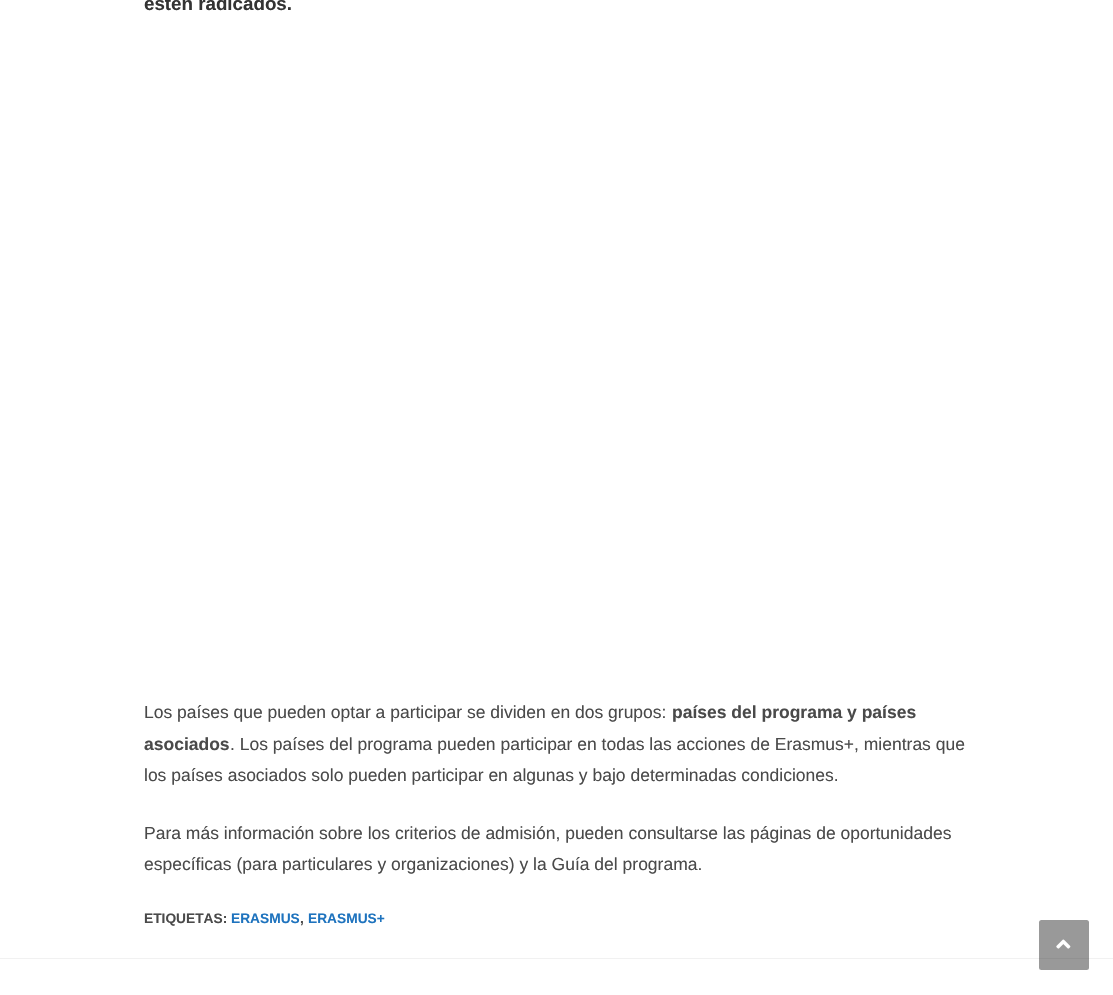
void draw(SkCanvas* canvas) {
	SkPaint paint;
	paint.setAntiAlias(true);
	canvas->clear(0xffffffff);
	SkFont f1(fontMgr->matchFamilyStyle("Liberation Sans", SkFontStyle::Bold()), 18.75);
	f1.setSubpixel(true);
	paint.setColor(0xff333333);
	canvas->drawString("estén radicados.", 144, 10, f1, paint);
	SkFont f2(fontMgr->matchFamilyStyle("Liberation Sans", SkFontStyle::Normal()), 17.5);
	f2.setSubpixel(true);
	paint.setColor(0xff4a4a4a);
	canvas->drawString("Los países que pueden optar a participar se dividen en dos grupos:", 144, 718, f2, paint);
	SkFont f3(fontMgr->matchFamilyStyle("Liberation Sans", SkFontStyle::Bold()), 17.5);
	f3.setSubpixel(true);
	canvas->drawString("países del programa y países", 672, 718, f3, paint);
	canvas->drawString("asociados", 144, 750, f3, paint);
	canvas->drawString(". Los países del programa pueden participar en todas las acciones de Erasmus+, mientras que", 230, 750, f2, paint);
	canvas->drawString("los países asociados solo pueden participar en algunas y bajo determinadas condiciones.", 144, 781, f2, paint);
	canvas->drawString("Para más información sobre los criterios de admisión, pueden consultarse las páginas de oportunidades", 144, 839, f2, paint);
	canvas->drawString("específicas (para particulares y organizaciones) y la Guía del programa.", 144, 870, f2, paint);
	SkFont f4(fontMgr->matchFamilyStyle("Liberation Sans", SkFontStyle::Bold()), 13.75);
	f4.setSubpixel(true);
	canvas->drawString("ETIQUETAS:", 144, 923, f4, paint);
	paint.setColor(0xff1e73be);
	canvas->drawString("ERASMUS", 231, 923, f4, paint);
	paint.setColor(0xff4a4a4a);
	canvas->drawString(",", 300, 923, f4, paint);
	paint.setColor(0xff1e73be);
	canvas->drawString("ERASMUS+", 308, 923, f4, paint);
	paint.setColor(0xfff1f1f1);
	canvas->drawRect(SkRect::MakeXYWH(0, 958, 1113, 1), paint);
	paint.setColor(0x66000000);
	canvas->drawRoundRect(SkRect::MakeXYWH(1039, 920, 50, 50), 2.5, 2.5, paint);
	canvas->drawImageRect(SkImages::DeferredFromEncodedData(SkData::MakeFromFileName("img1.png")), SkRect::MakeXYWH(1056, 939, 15, 10), SkSamplingOptions());
}
